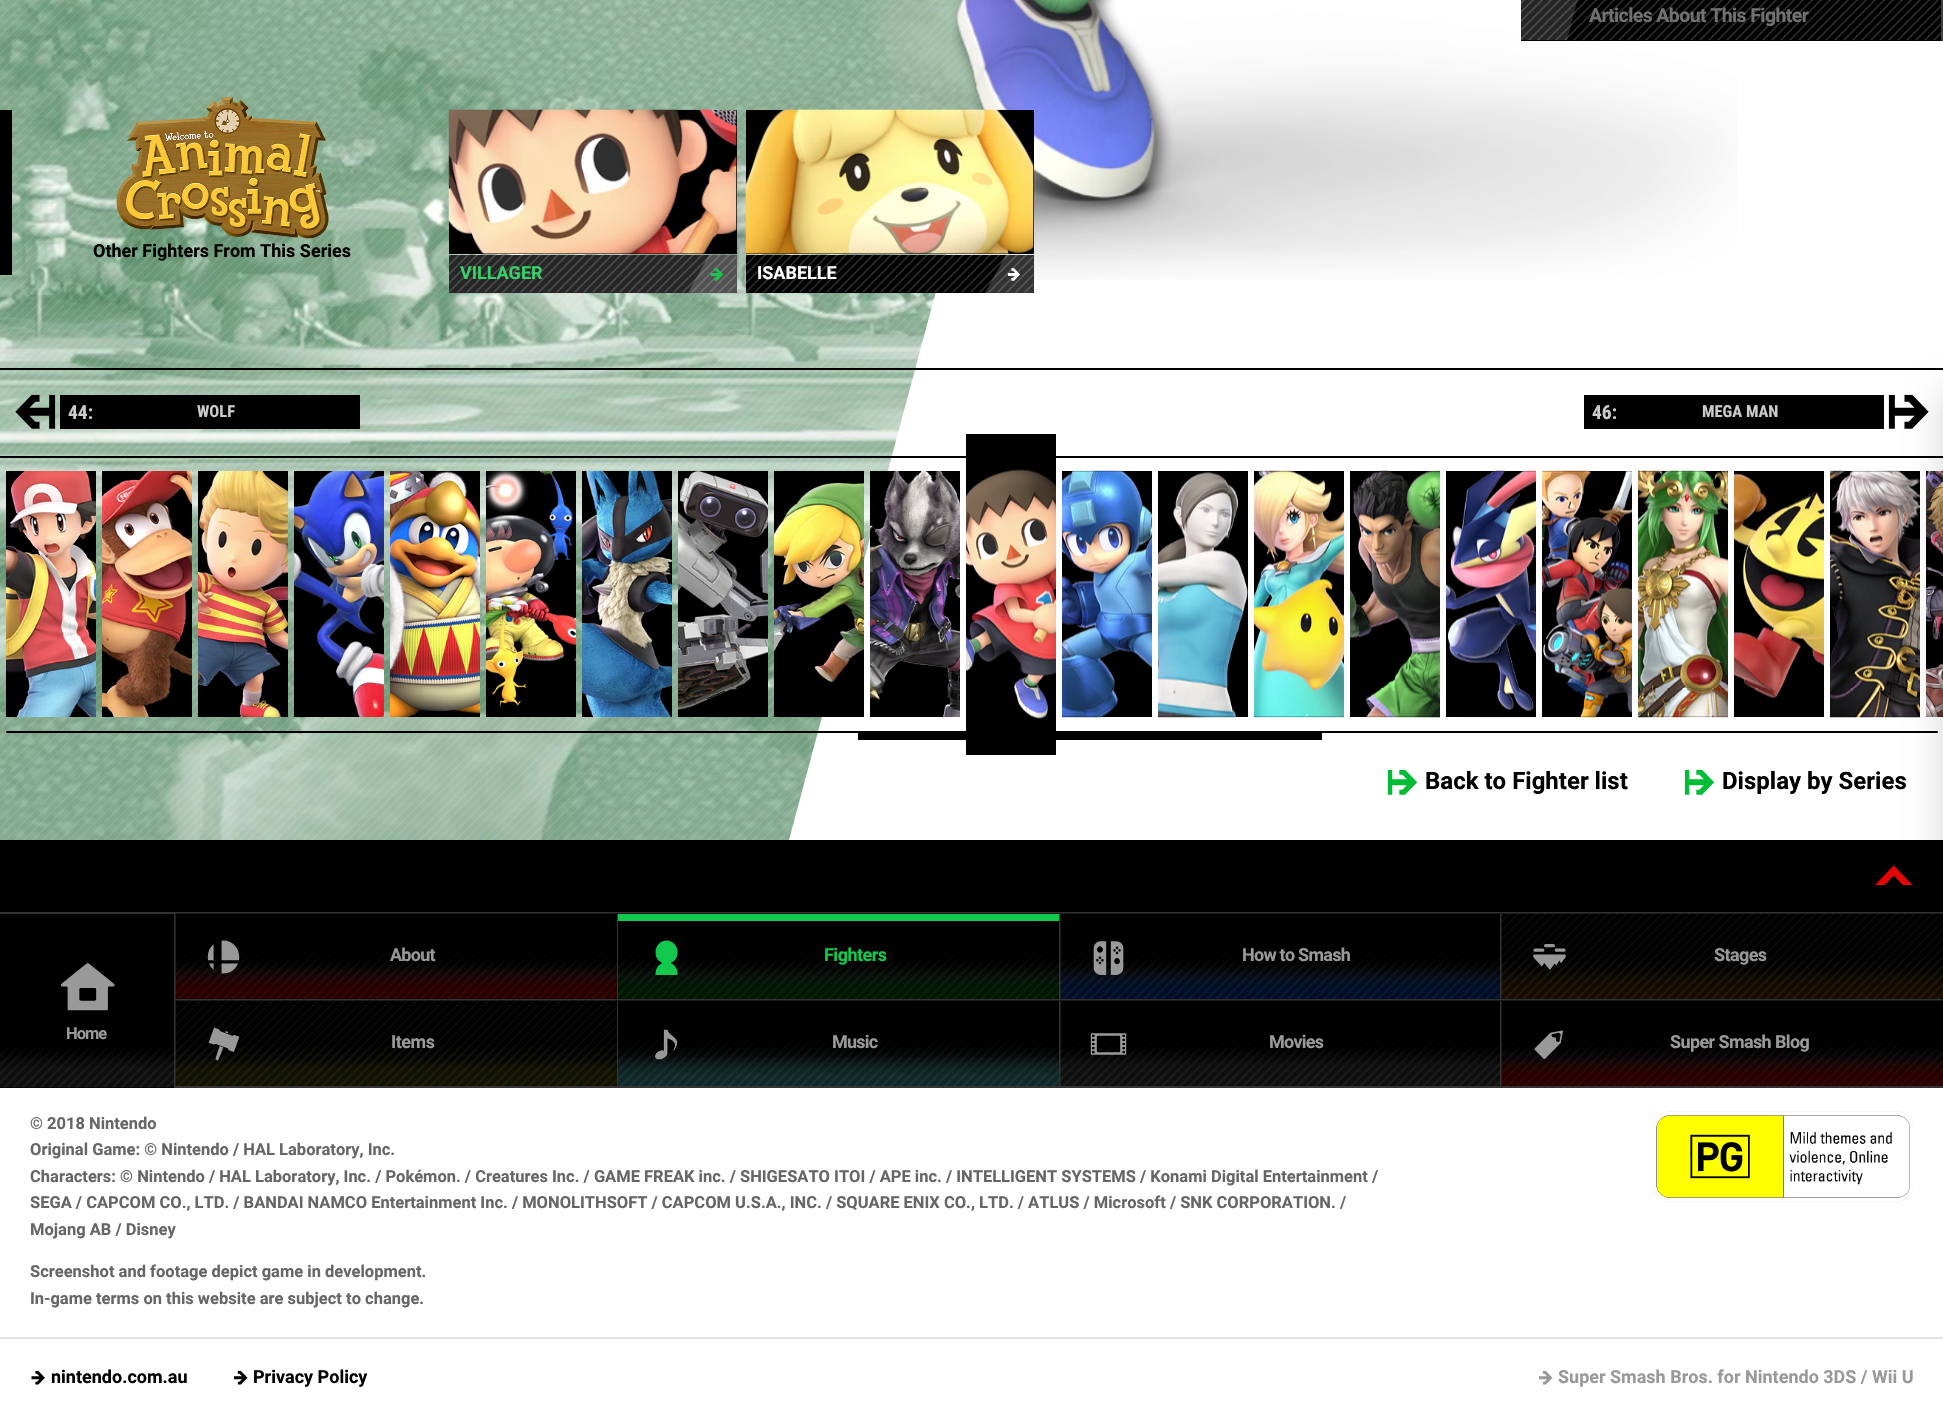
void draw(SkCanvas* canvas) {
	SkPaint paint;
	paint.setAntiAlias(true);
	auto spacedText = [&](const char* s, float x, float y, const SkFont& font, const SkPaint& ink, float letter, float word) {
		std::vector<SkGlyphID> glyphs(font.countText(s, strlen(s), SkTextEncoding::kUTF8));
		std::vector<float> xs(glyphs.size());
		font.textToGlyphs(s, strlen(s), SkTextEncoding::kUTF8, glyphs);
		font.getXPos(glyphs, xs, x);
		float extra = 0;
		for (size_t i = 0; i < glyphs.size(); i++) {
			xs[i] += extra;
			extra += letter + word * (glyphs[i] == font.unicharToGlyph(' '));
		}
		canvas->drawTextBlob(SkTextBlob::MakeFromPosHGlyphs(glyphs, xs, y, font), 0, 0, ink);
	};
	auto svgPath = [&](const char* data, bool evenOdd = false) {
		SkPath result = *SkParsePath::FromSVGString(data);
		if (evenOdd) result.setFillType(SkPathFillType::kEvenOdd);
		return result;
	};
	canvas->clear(0xffffffff);
	canvas->drawImageRect(SkImages::DeferredFromEncodedData(SkData::MakeFromFileName("img1.png")), SkRect::MakeXYWH(0, 0, 986, 840), SkSamplingOptions());
	paint.setColor(0xffffffff);
	canvas->drawPath(svgPath("M1473-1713H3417L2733 840H789Z"), paint);
	canvas->drawImageRect(SkImages::DeferredFromEncodedData(SkData::MakeFromFileName("img2.png")), SkRect::MakeXYWH(0, 0, 1013, 840), SkSamplingOptions());
	canvas->drawImageRect(SkImages::DeferredFromEncodedData(SkData::MakeFromFileName("img3.png")), SkRect::MakeXYWH(554, 0, 1184, 280), SkSamplingOptions());
	paint.setColor(0xff000000);
	canvas->drawRect(SkRect::MakeXYWH(1521, 0, 420, 41), paint);
	canvas->drawImageRect(SkImages::DeferredFromEncodedData(SkData::MakeFromFileName("img4.png")), SkRect::MakeXYWH(1521, 0, 420, 41), SkSamplingOptions());
	canvas->save();
	canvas->clipRect(SkRect::MakeXYWH(1521, 0, 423, 41));
	paint.setColor(0x26ffffff);
	canvas->drawPath(svgPath("M1521-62H1594L1567 40H1494Z"), paint);
	canvas->restore();
	paint.setColor(0xff404040);
	canvas->drawRect(SkRect::MakeXYWH(1941, 0, 2, 41), paint);
	SkFont f1(fontMgr->matchFamilyStyle("Roboto", SkFontStyle::Bold()), 19.5);
	f1.setSubpixel(true);
	paint.setColor(0xff717171);
	spacedText("Articles About This Fighter", 1589, 22, f1, paint, -0.6, 0);
	paint.setColor(0xff000000);
	canvas->drawRect(SkRect::MakeXYWH(0, 110, 12, 165), paint);
	canvas->drawImageRect(SkImages::DeferredFromEncodedData(SkData::MakeFromFileName("img5.png")), SkRect::MakeXYWH(116, 97, 213, 142), SkSamplingOptions());
	SkFont f2(fontMgr->matchFamilyStyle("Roboto", SkFontStyle::Bold()), 18);
	f2.setSubpixel(true);
	canvas->drawString("Other Fighters From This Series", 93, 257, f2, paint);
	canvas->drawRect(SkRect::MakeXYWH(449, 110, 288, 144), paint);
	canvas->drawImageRect(SkImages::DeferredFromEncodedData(SkData::MakeFromFileName("img6.png")), SkRect::MakeXYWH(448, 109, 289, 145), SkSamplingOptions());
	canvas->drawRect(SkRect::MakeXYWH(449, 255, 288, 38), paint);
	canvas->drawImageRect(SkImages::DeferredFromEncodedData(SkData::MakeFromFileName("img7.png")), SkRect::MakeXYWH(448, 255, 289, 38), SkSamplingOptions());
	paint.setColor(0xff12c94d);
	canvas->drawString("VILLAGER", 460, 279, f2, paint);
	paint.setColor(0x26ffffff);
	canvas->drawRect(SkRect::MakeXYWH(449, 255, 288, 38), paint);
	canvas->save();
	canvas->clipRect(SkRect::MakeXYWH(449, 110, 288, 183));
	paint.setColor(0x33ffffff);
	canvas->drawPath(svgPath("M709 255H757L736 293H688Z"), paint);
	canvas->restore();
	canvas->drawImageRect(SkImages::DeferredFromEncodedData(SkData::MakeFromFileName("img8.png")), SkRect::MakeXYWH(710, 268, 13, 13), SkSamplingOptions());
	paint.setColor(0xff000000);
	canvas->drawRect(SkRect::MakeXYWH(746, 110, 288, 144), paint);
	canvas->drawImageRect(SkImages::DeferredFromEncodedData(SkData::MakeFromFileName("img9.png")), SkRect::MakeXYWH(745, 109, 289, 145), SkSamplingOptions());
	canvas->drawRect(SkRect::MakeXYWH(746, 255, 288, 38), paint);
	canvas->drawImageRect(SkImages::DeferredFromEncodedData(SkData::MakeFromFileName("img10.png")), SkRect::MakeXYWH(745, 255, 289, 38), SkSamplingOptions());
	paint.setColor(0xffffffff);
	canvas->drawString("ISABELLE", 757, 279, f2, paint);
	canvas->save();
	canvas->clipRect(SkRect::MakeXYWH(746, 110, 288, 183));
	paint.setColor(0x33ffffff);
	canvas->drawPath(svgPath("M1006 255H1054L1033 293H985Z"), paint);
	canvas->restore();
	canvas->drawImageRect(SkImages::DeferredFromEncodedData(SkData::MakeFromFileName("img11.png")), SkRect::MakeXYWH(1007, 268, 13, 13), SkSamplingOptions());
	paint.setColor(0xff000000);
	canvas->drawRect(SkRect::MakeXYWH(0, 368, 1943, 2), paint);
	canvas->drawImageRect(SkImages::DeferredFromEncodedData(SkData::MakeFromFileName("img12.png")), SkRect::MakeXYWH(15, 394, 41, 35), SkSamplingOptions());
	canvas->drawRect(SkRect::MakeXYWH(60, 395, 300, 34), paint);
	SkFont f3(fontMgr->matchFamilyStyle("Roboto Condensed", SkFontStyle::Bold()), 19.5);
	f3.setSubpixel(true);
	paint.setColor(0xffcccccc);
	canvas->drawString("44:", 68, 419, f3, paint);
	SkFont f4(fontMgr->matchFamilyStyle("Roboto Condensed", SkFontStyle::Bold()), 16.5);
	f4.setSubpixel(true);
	canvas->drawString("WOLF", 197, 417, f4, paint);
	paint.setColor(0xff000000);
	canvas->drawRect(SkRect::MakeXYWH(1584, 395, 300, 34), paint);
	paint.setColor(0xffcccccc);
	canvas->drawString("46:", 1592, 419, f3, paint);
	canvas->drawString("MEGA MAN", 1702, 417, f4, paint);
	canvas->drawImageRect(SkImages::DeferredFromEncodedData(SkData::MakeFromFileName("img13.png")), SkRect::MakeXYWH(1888, 394, 41, 35), SkSamplingOptions());
	paint.setColor(0xff000000);
	canvas->drawRect(SkRect::MakeXYWH(6, 471, 90, 246), paint);
	canvas->drawImageRect(SkImages::DeferredFromEncodedData(SkData::MakeFromFileName("img14.png")), SkRect::MakeXYWH(6, 471, 90, 246), SkSamplingOptions());
	canvas->drawRect(SkRect::MakeXYWH(102, 471, 90, 246), paint);
	canvas->drawImageRect(SkImages::DeferredFromEncodedData(SkData::MakeFromFileName("img15.png")), SkRect::MakeXYWH(102, 471, 90, 246), SkSamplingOptions());
	canvas->drawRect(SkRect::MakeXYWH(198, 471, 90, 246), paint);
	canvas->drawImageRect(SkImages::DeferredFromEncodedData(SkData::MakeFromFileName("img16.png")), SkRect::MakeXYWH(198, 471, 90, 246), SkSamplingOptions());
	canvas->drawRect(SkRect::MakeXYWH(294, 471, 90, 246), paint);
	canvas->drawImageRect(SkImages::DeferredFromEncodedData(SkData::MakeFromFileName("img17.png")), SkRect::MakeXYWH(294, 471, 90, 246), SkSamplingOptions());
	canvas->drawRect(SkRect::MakeXYWH(407, 471, 73, 246), paint);
	canvas->drawImageRect(SkImages::DeferredFromEncodedData(SkData::MakeFromFileName("img18.png")), SkRect::MakeXYWH(390, 471, 90, 246), SkSamplingOptions());
	canvas->drawRect(SkRect::MakeXYWH(486, 471, 90, 246), paint);
	canvas->drawImageRect(SkImages::DeferredFromEncodedData(SkData::MakeFromFileName("img19.png")), SkRect::MakeXYWH(486, 471, 90, 236), SkSamplingOptions());
	canvas->drawRect(SkRect::MakeXYWH(582, 471, 90, 246), paint);
	canvas->drawImageRect(SkImages::DeferredFromEncodedData(SkData::MakeFromFileName("img20.png")), SkRect::MakeXYWH(582, 471, 90, 246), SkSamplingOptions());
	canvas->drawRect(SkRect::MakeXYWH(678, 471, 90, 246), paint);
	canvas->drawImageRect(SkImages::DeferredFromEncodedData(SkData::MakeFromFileName("img21.png")), SkRect::MakeXYWH(678, 471, 90, 239), SkSamplingOptions());
	canvas->drawRect(SkRect::MakeXYWH(774, 471, 90, 246), paint);
	canvas->drawImageRect(SkImages::DeferredFromEncodedData(SkData::MakeFromFileName("img22.png")), SkRect::MakeXYWH(774, 482, 90, 200), SkSamplingOptions());
	canvas->drawRect(SkRect::MakeXYWH(870, 471, 90, 246), paint);
	canvas->drawImageRect(SkImages::DeferredFromEncodedData(SkData::MakeFromFileName("img23.png")), SkRect::MakeXYWH(870, 471, 90, 246), SkSamplingOptions());
	canvas->drawRoundRect(SkRect::MakeXYWH(6, 731, 1932, 2), 1, 1, paint);
	canvas->drawRect(SkRect::MakeXYWH(858, 733, 464, 7), paint);
	canvas->drawRect(SkRect::MakeXYWH(0, 456, 1943, 2), paint);
	canvas->drawRect(SkRect::MakeXYWH(966, 434, 90, 321), paint);
	canvas->drawImageRect(SkImages::DeferredFromEncodedData(SkData::MakeFromFileName("img24.png")), SkRect::MakeXYWH(966, 469, 90, 250), SkSamplingOptions());
	canvas->drawRect(SkRect::MakeXYWH(1062, 471, 90, 246), paint);
	canvas->drawImageRect(SkImages::DeferredFromEncodedData(SkData::MakeFromFileName("img25.png")), SkRect::MakeXYWH(1062, 470, 90, 248), SkSamplingOptions());
	canvas->drawRect(SkRect::MakeXYWH(1158, 471, 90, 246), paint);
	canvas->drawImageRect(SkImages::DeferredFromEncodedData(SkData::MakeFromFileName("img26.png")), SkRect::MakeXYWH(1158, 472, 90, 246), SkSamplingOptions());
	canvas->drawRect(SkRect::MakeXYWH(1254, 471, 90, 246), paint);
	canvas->drawImageRect(SkImages::DeferredFromEncodedData(SkData::MakeFromFileName("img27.png")), SkRect::MakeXYWH(1254, 470, 90, 248), SkSamplingOptions());
	canvas->drawRect(SkRect::MakeXYWH(1350, 471, 90, 246), paint);
	canvas->drawImageRect(SkImages::DeferredFromEncodedData(SkData::MakeFromFileName("img28.png")), SkRect::MakeXYWH(1350, 470, 90, 248), SkSamplingOptions());
	canvas->drawRect(SkRect::MakeXYWH(1446, 471, 90, 246), paint);
	canvas->drawImageRect(SkImages::DeferredFromEncodedData(SkData::MakeFromFileName("img29.png")), SkRect::MakeXYWH(1446, 470, 90, 248), SkSamplingOptions());
	canvas->drawRect(SkRect::MakeXYWH(1542, 471, 90, 246), paint);
	canvas->drawImageRect(SkImages::DeferredFromEncodedData(SkData::MakeFromFileName("img30.png")), SkRect::MakeXYWH(1542, 470, 90, 248), SkSamplingOptions());
	canvas->drawRect(SkRect::MakeXYWH(1638, 471, 90, 246), paint);
	canvas->drawImageRect(SkImages::DeferredFromEncodedData(SkData::MakeFromFileName("img31.png")), SkRect::MakeXYWH(1638, 470, 90, 248), SkSamplingOptions());
	canvas->drawRect(SkRect::MakeXYWH(1734, 471, 90, 246), paint);
	canvas->drawImageRect(SkImages::DeferredFromEncodedData(SkData::MakeFromFileName("img32.png")), SkRect::MakeXYWH(1734, 473, 90, 244), SkSamplingOptions());
	canvas->drawRect(SkRect::MakeXYWH(1830, 471, 90, 246), paint);
	canvas->drawImageRect(SkImages::DeferredFromEncodedData(SkData::MakeFromFileName("img33.png")), SkRect::MakeXYWH(1830, 470, 90, 248), SkSamplingOptions());
	canvas->drawRect(SkRect::MakeXYWH(1926, 471, 17, 199), paint);
	canvas->drawImageRect(SkImages::DeferredFromEncodedData(SkData::MakeFromFileName("img34.png")), SkRect::MakeXYWH(1926, 471, 17, 246), SkSamplingOptions());
	canvas->drawImageRect(SkImages::DeferredFromEncodedData(SkData::MakeFromFileName("img35.png")), SkRect::MakeXYWH(1387, 769, 30, 26), SkSamplingOptions());
	SkFont f5(fontMgr->matchFamilyStyle("Roboto", SkFontStyle::Bold()), 24);
	f5.setSubpixel(true);
	canvas->drawString("Back to Fighter list", 1425, 789, f5, paint);
	canvas->drawImageRect(SkImages::DeferredFromEncodedData(SkData::MakeFromFileName("img35.png")), SkRect::MakeXYWH(1684, 769, 30, 26), SkSamplingOptions());
	canvas->drawString("Display by Series", 1722, 789, f5, paint);
	paint.setColor(0x2b000000);
	paint.setMaskFilter(SkMaskFilter::MakeBlur(kNormal_SkBlurStyle, 18));
	canvas->drawRect(SkRect::MakeXYWH(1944, 393, 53, 635), paint);
	paint.setMaskFilter(nullptr);
	paint.setColor(0xff000000);
	canvas->drawRect(SkRect::MakeXYWH(0, 840, 1943, 72), paint);
	canvas->drawImageRect(SkImages::DeferredFromEncodedData(SkData::MakeFromFileName("img36.png")), SkRect::MakeXYWH(1875, 865, 38, 20), SkSamplingOptions());
	paint.setColor(0xff333333);
	canvas->drawRect(SkRect::MakeXYWH(0, 912, 1943, 2), paint);
	paint.setColor(0xff000000);
	canvas->drawRect(SkRect::MakeXYWH(0, 914, 174, 174), paint);
	canvas->drawImageRect(SkImages::DeferredFromEncodedData(SkData::MakeFromFileName("img37.png")), SkRect::MakeXYWH(0, 1046, 174, 42), SkSamplingOptions());
	paint.setColor(0xff333333);
	canvas->drawRect(SkRect::MakeXYWH(174, 914, 2, 174), paint);
	canvas->drawImageRect(SkImages::DeferredFromEncodedData(SkData::MakeFromFileName("img38.png")), SkRect::MakeXYWH(60, 963, 55, 48), SkSamplingOptions());
	SkFont f6(fontMgr->matchFamilyStyle("Roboto", SkFontStyle::Bold()), 16.5);
	f6.setSubpixel(true);
	paint.setColor(0xff999999);
	spacedText("Home", 66, 1039, f6, paint, -1, 0);
	canvas->drawImageRect(SkImages::DeferredFromEncodedData(SkData::MakeFromFileName("img39.png")), SkRect::MakeXYWH(175, 913, 443, 86), SkSamplingOptions());
	paint.setColor(0xff333333);
	canvas->drawRect(SkRect::MakeXYWH(617, 914, 1, 87), paint);
	canvas->drawRect(SkRect::MakeXYWH(176, 999, 442, 2), paint);
	canvas->drawImageRect(SkImages::DeferredFromEncodedData(SkData::MakeFromFileName("img40.png")), SkRect::MakeXYWH(207, 940, 33, 34), SkSamplingOptions());
	paint.setColor(0xff999999);
	spacedText("About", 390, 961, f2, paint, -0.75, 0);
	canvas->drawImageRect(SkImages::DeferredFromEncodedData(SkData::MakeFromFileName("img41.png")), SkRect::MakeXYWH(618, 913, 443, 86), SkSamplingOptions());
	paint.setColor(0xff333333);
	canvas->drawRect(SkRect::MakeXYWH(1059, 914, 2, 87), paint);
	canvas->drawRect(SkRect::MakeXYWH(618, 999, 443, 2), paint);
	paint.setColor(0xff12c94d);
	canvas->drawRect(SkRect::MakeXYWH(618, 914, 441, 7), paint);
	canvas->drawImageRect(SkImages::DeferredFromEncodedData(SkData::MakeFromFileName("img42.png")), SkRect::MakeXYWH(655, 940, 23, 35), SkSamplingOptions());
	spacedText("Fighters", 824, 961, f2, paint, -0.5, 0);
	canvas->drawImageRect(SkImages::DeferredFromEncodedData(SkData::MakeFromFileName("img43.png")), SkRect::MakeXYWH(1060, 913, 442, 86), SkSamplingOptions());
	paint.setColor(0xff333333);
	canvas->drawRect(SkRect::MakeXYWH(1500, 914, 2, 87), paint);
	canvas->drawRect(SkRect::MakeXYWH(1061, 999, 882, 2), paint);
	canvas->drawImageRect(SkImages::DeferredFromEncodedData(SkData::MakeFromFileName("img44.png")), SkRect::MakeXYWH(1093, 941, 31, 34), SkSamplingOptions());
	paint.setColor(0xff999999);
	spacedText("How to Smash", 1242, 961, f2, paint, -0.75, 0);
	canvas->drawImageRect(SkImages::DeferredFromEncodedData(SkData::MakeFromFileName("img45.png")), SkRect::MakeXYWH(1501, 913, 442, 86), SkSamplingOptions());
	canvas->drawImageRect(SkImages::DeferredFromEncodedData(SkData::MakeFromFileName("img46.png")), SkRect::MakeXYWH(1533, 944, 33, 26), SkSamplingOptions());
	spacedText("Stages", 1714, 961, f2, paint, -0.6, 0);
	canvas->drawImageRect(SkImages::DeferredFromEncodedData(SkData::MakeFromFileName("img47.png")), SkRect::MakeXYWH(175, 1000, 443, 86), SkSamplingOptions());
	paint.setColor(0xff333333);
	canvas->drawRect(SkRect::MakeXYWH(617, 1001, 1, 87), paint);
	canvas->drawRect(SkRect::MakeXYWH(176, 1086, 442, 2), paint);
	canvas->drawImageRect(SkImages::DeferredFromEncodedData(SkData::MakeFromFileName("img48.png")), SkRect::MakeXYWH(208, 1027, 32, 34), SkSamplingOptions());
	paint.setColor(0xff999999);
	spacedText("Items", 391, 1048, f2, paint, -0.5, 0);
	canvas->drawImageRect(SkImages::DeferredFromEncodedData(SkData::MakeFromFileName("img49.png")), SkRect::MakeXYWH(618, 1000, 443, 86), SkSamplingOptions());
	paint.setColor(0xff333333);
	canvas->drawRect(SkRect::MakeXYWH(1059, 1001, 2, 87), paint);
	canvas->drawRect(SkRect::MakeXYWH(618, 1086, 443, 2), paint);
	canvas->drawImageRect(SkImages::DeferredFromEncodedData(SkData::MakeFromFileName("img50.png")), SkRect::MakeXYWH(655, 1029, 23, 31), SkSamplingOptions());
	paint.setColor(0xff999999);
	spacedText("Music", 832, 1048, f2, paint, -0.75, 0);
	canvas->drawImageRect(SkImages::DeferredFromEncodedData(SkData::MakeFromFileName("img51.png")), SkRect::MakeXYWH(1060, 1000, 442, 86), SkSamplingOptions());
	paint.setColor(0xff333333);
	canvas->drawRect(SkRect::MakeXYWH(1500, 1001, 2, 87), paint);
	canvas->drawRect(SkRect::MakeXYWH(1061, 1086, 882, 2), paint);
	canvas->drawImageRect(SkImages::DeferredFromEncodedData(SkData::MakeFromFileName("img52.png")), SkRect::MakeXYWH(1090, 1033, 37, 22), SkSamplingOptions());
	paint.setColor(0xff999999);
	spacedText("Movies", 1269, 1048, f2, paint, -0.75, 0);
	canvas->drawImageRect(SkImages::DeferredFromEncodedData(SkData::MakeFromFileName("img53.png")), SkRect::MakeXYWH(1501, 1000, 442, 86), SkSamplingOptions());
	canvas->drawImageRect(SkImages::DeferredFromEncodedData(SkData::MakeFromFileName("img54.png")), SkRect::MakeXYWH(1534, 1030, 29, 29), SkSamplingOptions());
	spacedText("Super Smash Blog", 1670, 1048, f2, paint, -0.6, 0);
	paint.setColor(0xff666666);
	canvas->drawString("© 2018 Nintendo", 30, 1129, f6, paint);
	canvas->drawString("Original Game: © Nintendo / HAL Laboratory, Inc.", 30, 1155, f6, paint);
	canvas->drawString("Characters: © Nintendo / HAL Laboratory, Inc. / Pokémon. / Creatures Inc. / GAME FREAK inc. / SHIGESATO ITOI / APE inc. / INTELLIGENT SYSTEMS / Konami Digital Entertainment /", 30, 1182, f6, paint);
	canvas->drawString("SEGA / CAPCOM CO., LTD. / BANDAI NAMCO Entertainment Inc. / MONOLITHSOFT / CAPCOM U.S.A., INC. / SQUARE ENIX CO., LTD. / ATLUS / Microsoft / SNK CORPORATION. /", 30, 1208, f6, paint);
	canvas->drawString("Mojang AB / Disney", 30, 1235, f6, paint);
	canvas->drawImageRect(SkImages::DeferredFromEncodedData(SkData::MakeFromFileName("img55.png")), SkRect::MakeXYWH(1653, 1111, 261, 91), SkSamplingOptions());
	canvas->drawString("Screenshot and footage depict game in development.", 30, 1277, f6, paint);
	canvas->drawString("In-game terms on this website are subject to change.", 30, 1304, f6, paint);
	paint.setColor(0xffe4e4e4);
	canvas->drawRect(SkRect::MakeXYWH(0, 1337, 1943, 2), paint);
	canvas->drawImageRect(SkImages::DeferredFromEncodedData(SkData::MakeFromFileName("img56.png")), SkRect::MakeXYWH(31, 1371, 14, 14), SkSamplingOptions());
	paint.setColor(0xff000000);
	canvas->drawString("nintendo.com.au", 51, 1383, f2, paint);
	canvas->drawImageRect(SkImages::DeferredFromEncodedData(SkData::MakeFromFileName("img57.png")), SkRect::MakeXYWH(234, 1371, 14, 14), SkSamplingOptions());
	canvas->drawString("Privacy Policy", 253, 1383, f2, paint);
	canvas->drawImageRect(SkImages::DeferredFromEncodedData(SkData::MakeFromFileName("img58.png")), SkRect::MakeXYWH(1539, 1371, 14, 14), SkSamplingOptions());
	paint.setColor(0xff999999);
	canvas->drawString("Super Smash Bros. for Nintendo 3DS / Wii U", 1558, 1383, f2, paint);
}
